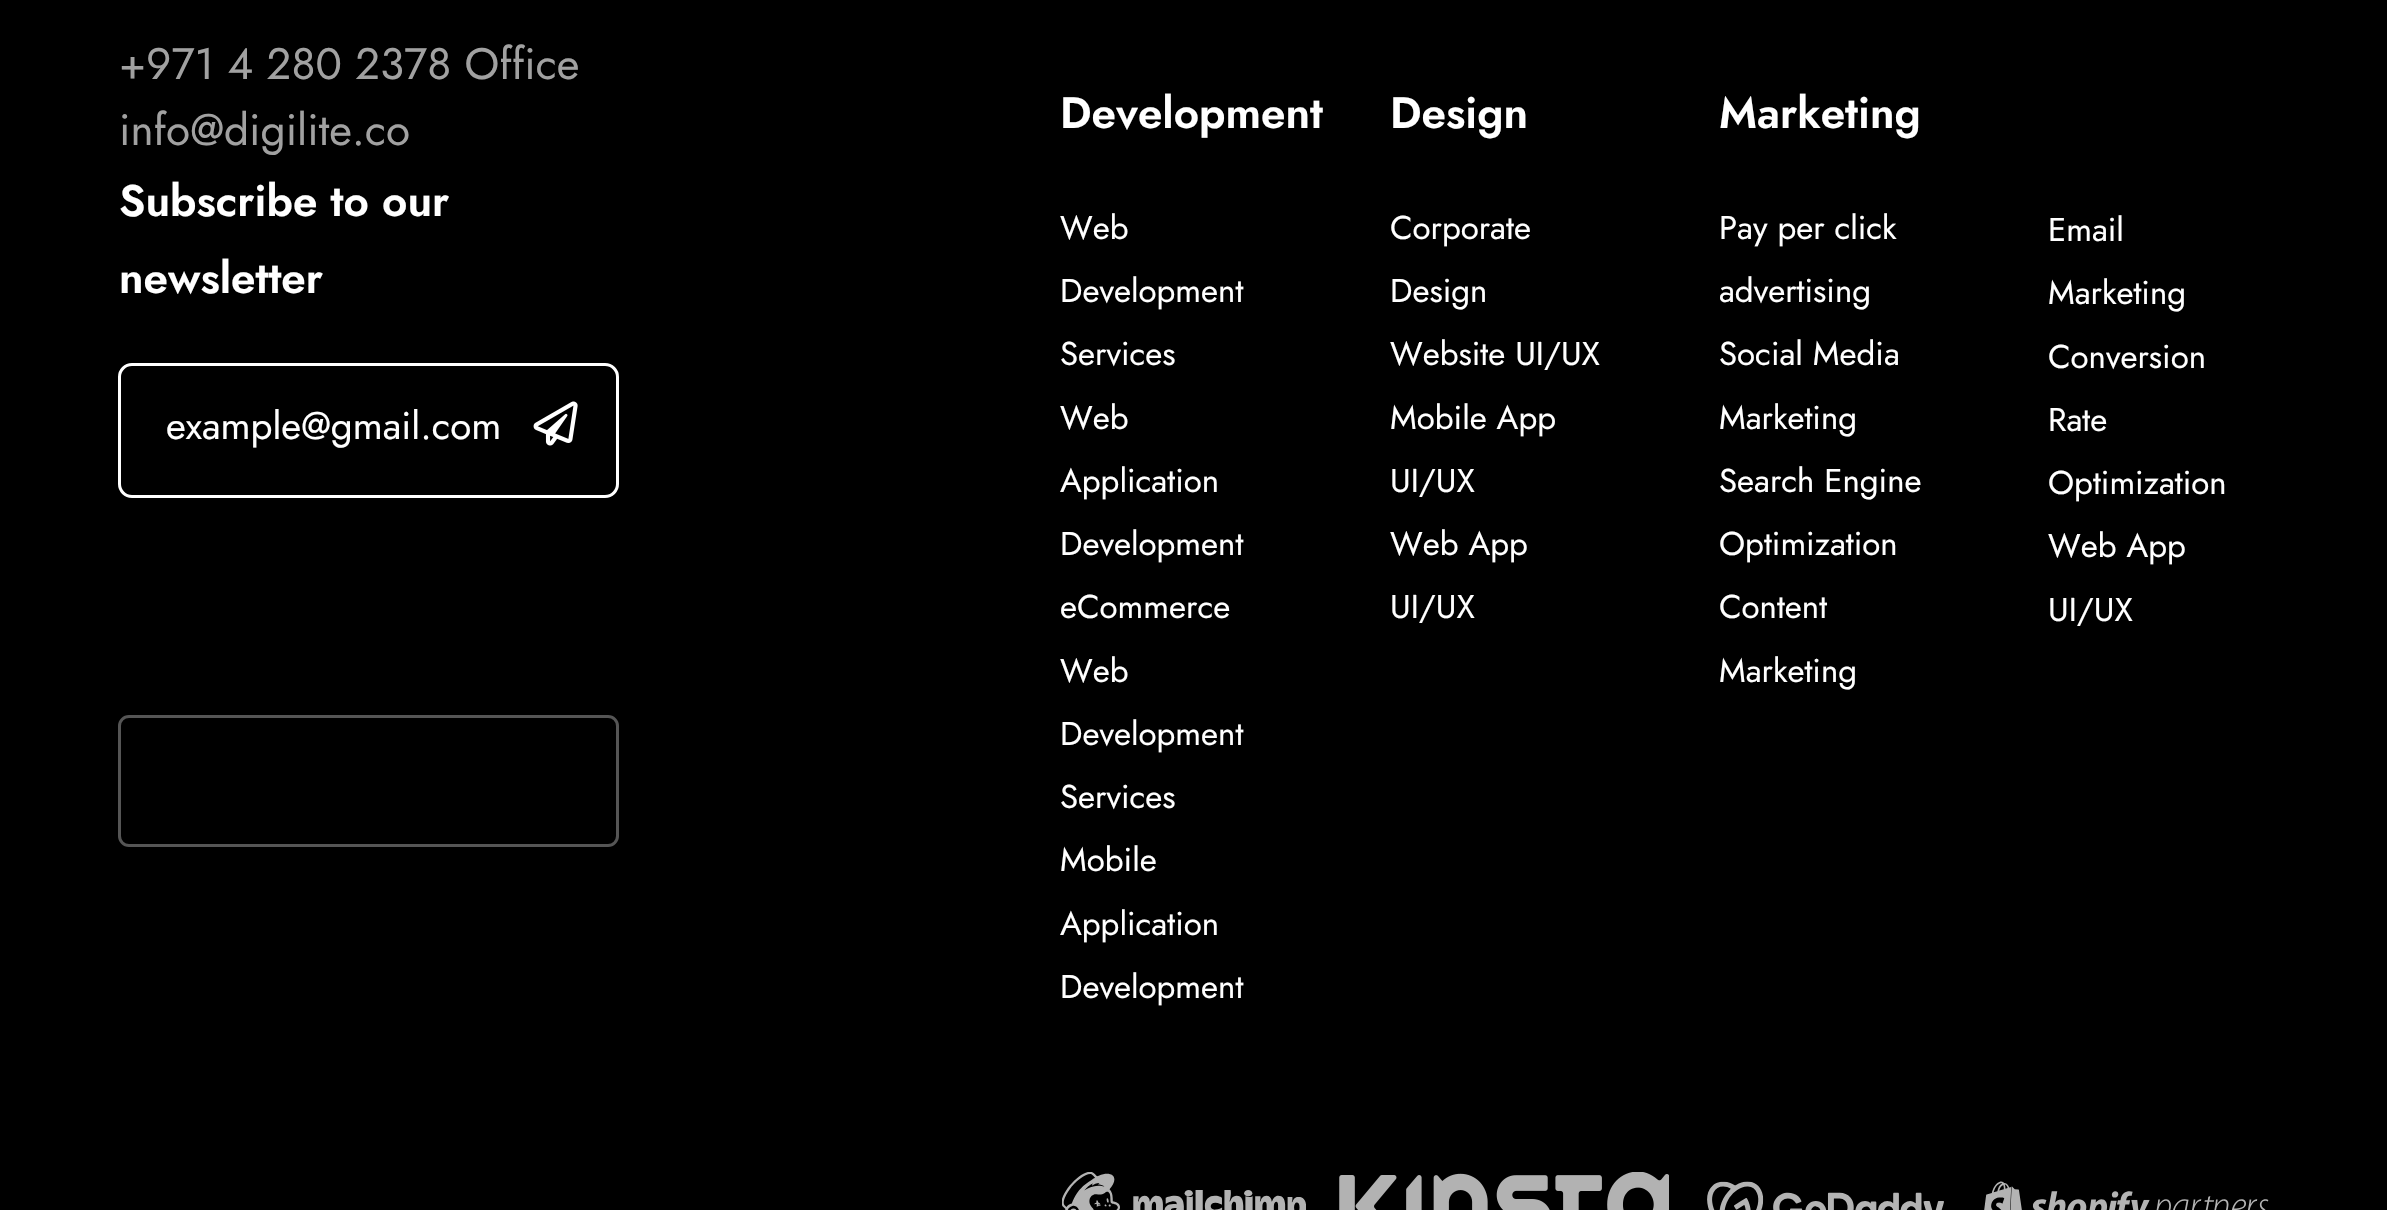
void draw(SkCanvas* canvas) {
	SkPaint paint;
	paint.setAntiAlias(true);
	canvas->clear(0xff000000);
	SkFont f1(fontMgr->matchFamilyStyle("Jost", SkFontStyle::Normal()), 44);
	f1.setSubpixel(true);
	paint.setColor(0xffa1a1a1);
	canvas->drawString("+971 4 280 2378 Office", 119, 79, f1, paint);
	canvas->drawString("info@digilite.co", 119, 145, f1, paint);
	SkFont f2(fontMgr->matchFamilyStyle("Jost", SkFontStyle(600, SkFontStyle::kNormal_Width, SkFontStyle::kUpright_Slant)), 44);
	f2.setSubpixel(true);
	paint.setColor(0xffffffff);
	canvas->drawString("Subscribe to our", 119, 216, f2, paint);
	canvas->drawString("newsletter", 119, 293, f2, paint);
	paint.setStroke(true);
	paint.setStrokeWidth(3);
	canvas->drawRoundRect(SkRect::MakeXYWH(119.5, 364.5, 498, 132), 12.5, 12.5, paint);
	SkFont f3(fontMgr->matchFamilyStyle("Jost", SkFontStyle::Normal()), 38.5);
	f3.setSubpixel(true);
	paint.setStroke(false);
	canvas->drawString("example@gmail.com", 166, 439, f3, paint);
	canvas->drawImageRect(SkImages::DeferredFromEncodedData(SkData::MakeFromFileName("img1.png")), SkRect::MakeXYWH(533, 401, 45, 45), SkSamplingOptions());
	paint.setStroke(true);
	paint.setColor(0xff555555);
	canvas->drawRoundRect(SkRect::MakeXYWH(119.5, 716.5, 498, 129), 9.5, 9.5, paint);
	paint.setStroke(false);
	paint.setColor(0xffffffff);
	canvas->drawString("Development", 1060, 128, f2, paint);
	SkFont f4(fontMgr->matchFamilyStyle("Jost", SkFontStyle::Normal()), 33);
	f4.setSubpixel(true);
	canvas->drawString("Web", 1060, 239, f4, paint);
	canvas->drawString("Development", 1060, 302, f4, paint);
	canvas->drawString("Services", 1060, 365, f4, paint);
	canvas->drawString("Web", 1060, 429, f4, paint);
	canvas->drawString("Application", 1060, 492, f4, paint);
	canvas->drawString("Development", 1060, 555, f4, paint);
	canvas->drawString("eCommerce", 1060, 618, f4, paint);
	canvas->drawString("Web", 1060, 682, f4, paint);
	canvas->drawString("Development", 1060, 745, f4, paint);
	canvas->drawString("Services", 1060, 808, f4, paint);
	canvas->drawString("Mobile", 1060, 871, f4, paint);
	canvas->drawString("Application", 1060, 935, f4, paint);
	canvas->drawString("Development", 1060, 998, f4, paint);
	canvas->drawString("Design", 1390, 128, f2, paint);
	canvas->drawString("Corporate", 1390, 239, f4, paint);
	canvas->drawString("Design", 1390, 302, f4, paint);
	canvas->drawString("Website UI/UX", 1390, 365, f4, paint);
	canvas->drawString("Mobile App", 1390, 429, f4, paint);
	canvas->drawString("UI/UX", 1390, 492, f4, paint);
	canvas->drawString("Web App", 1390, 555, f4, paint);
	canvas->drawString("UI/UX", 1390, 618, f4, paint);
	canvas->drawString("Marketing", 1719, 128, f2, paint);
	canvas->drawString("Pay per click", 1719, 239, f4, paint);
	canvas->drawString("advertising", 1719, 302, f4, paint);
	canvas->drawString("Social Media", 1719, 365, f4, paint);
	canvas->drawString("Marketing", 1719, 429, f4, paint);
	canvas->drawString("Search Engine", 1719, 492, f4, paint);
	canvas->drawString("Optimization", 1719, 555, f4, paint);
	canvas->drawString("Content", 1719, 618, f4, paint);
	canvas->drawString("Marketing", 1719, 682, f4, paint);
	canvas->drawString("Email", 2048, 241, f4, paint);
	canvas->drawString("Marketing", 2048, 304, f4, paint);
	canvas->drawString("Conversion", 2048, 368, f4, paint);
	canvas->drawString("Rate", 2048, 431, f4, paint);
	canvas->drawString("Optimization", 2048, 494, f4, paint);
	canvas->drawString("Web App", 2048, 557, f4, paint);
	canvas->drawString("UI/UX", 2048, 621, f4, paint);
	canvas->drawImageRect(SkImages::DeferredFromEncodedData(SkData::MakeFromFileName("img2.png")), SkRect::MakeXYWH(1062, 1172, 244, 38), SkSamplingOptions());
	canvas->drawImageRect(SkImages::DeferredFromEncodedData(SkData::MakeFromFileName("img3.png")), SkRect::MakeXYWH(1339, 1172, 330, 38), SkSamplingOptions());
	canvas->drawImageRect(SkImages::DeferredFromEncodedData(SkData::MakeFromFileName("img4.png")), SkRect::MakeXYWH(1707, 1181, 237, 29), SkSamplingOptions());
	canvas->drawImageRect(SkImages::DeferredFromEncodedData(SkData::MakeFromFileName("img5.png")), SkRect::MakeXYWH(1984, 1181, 285, 29), SkSamplingOptions());
}
